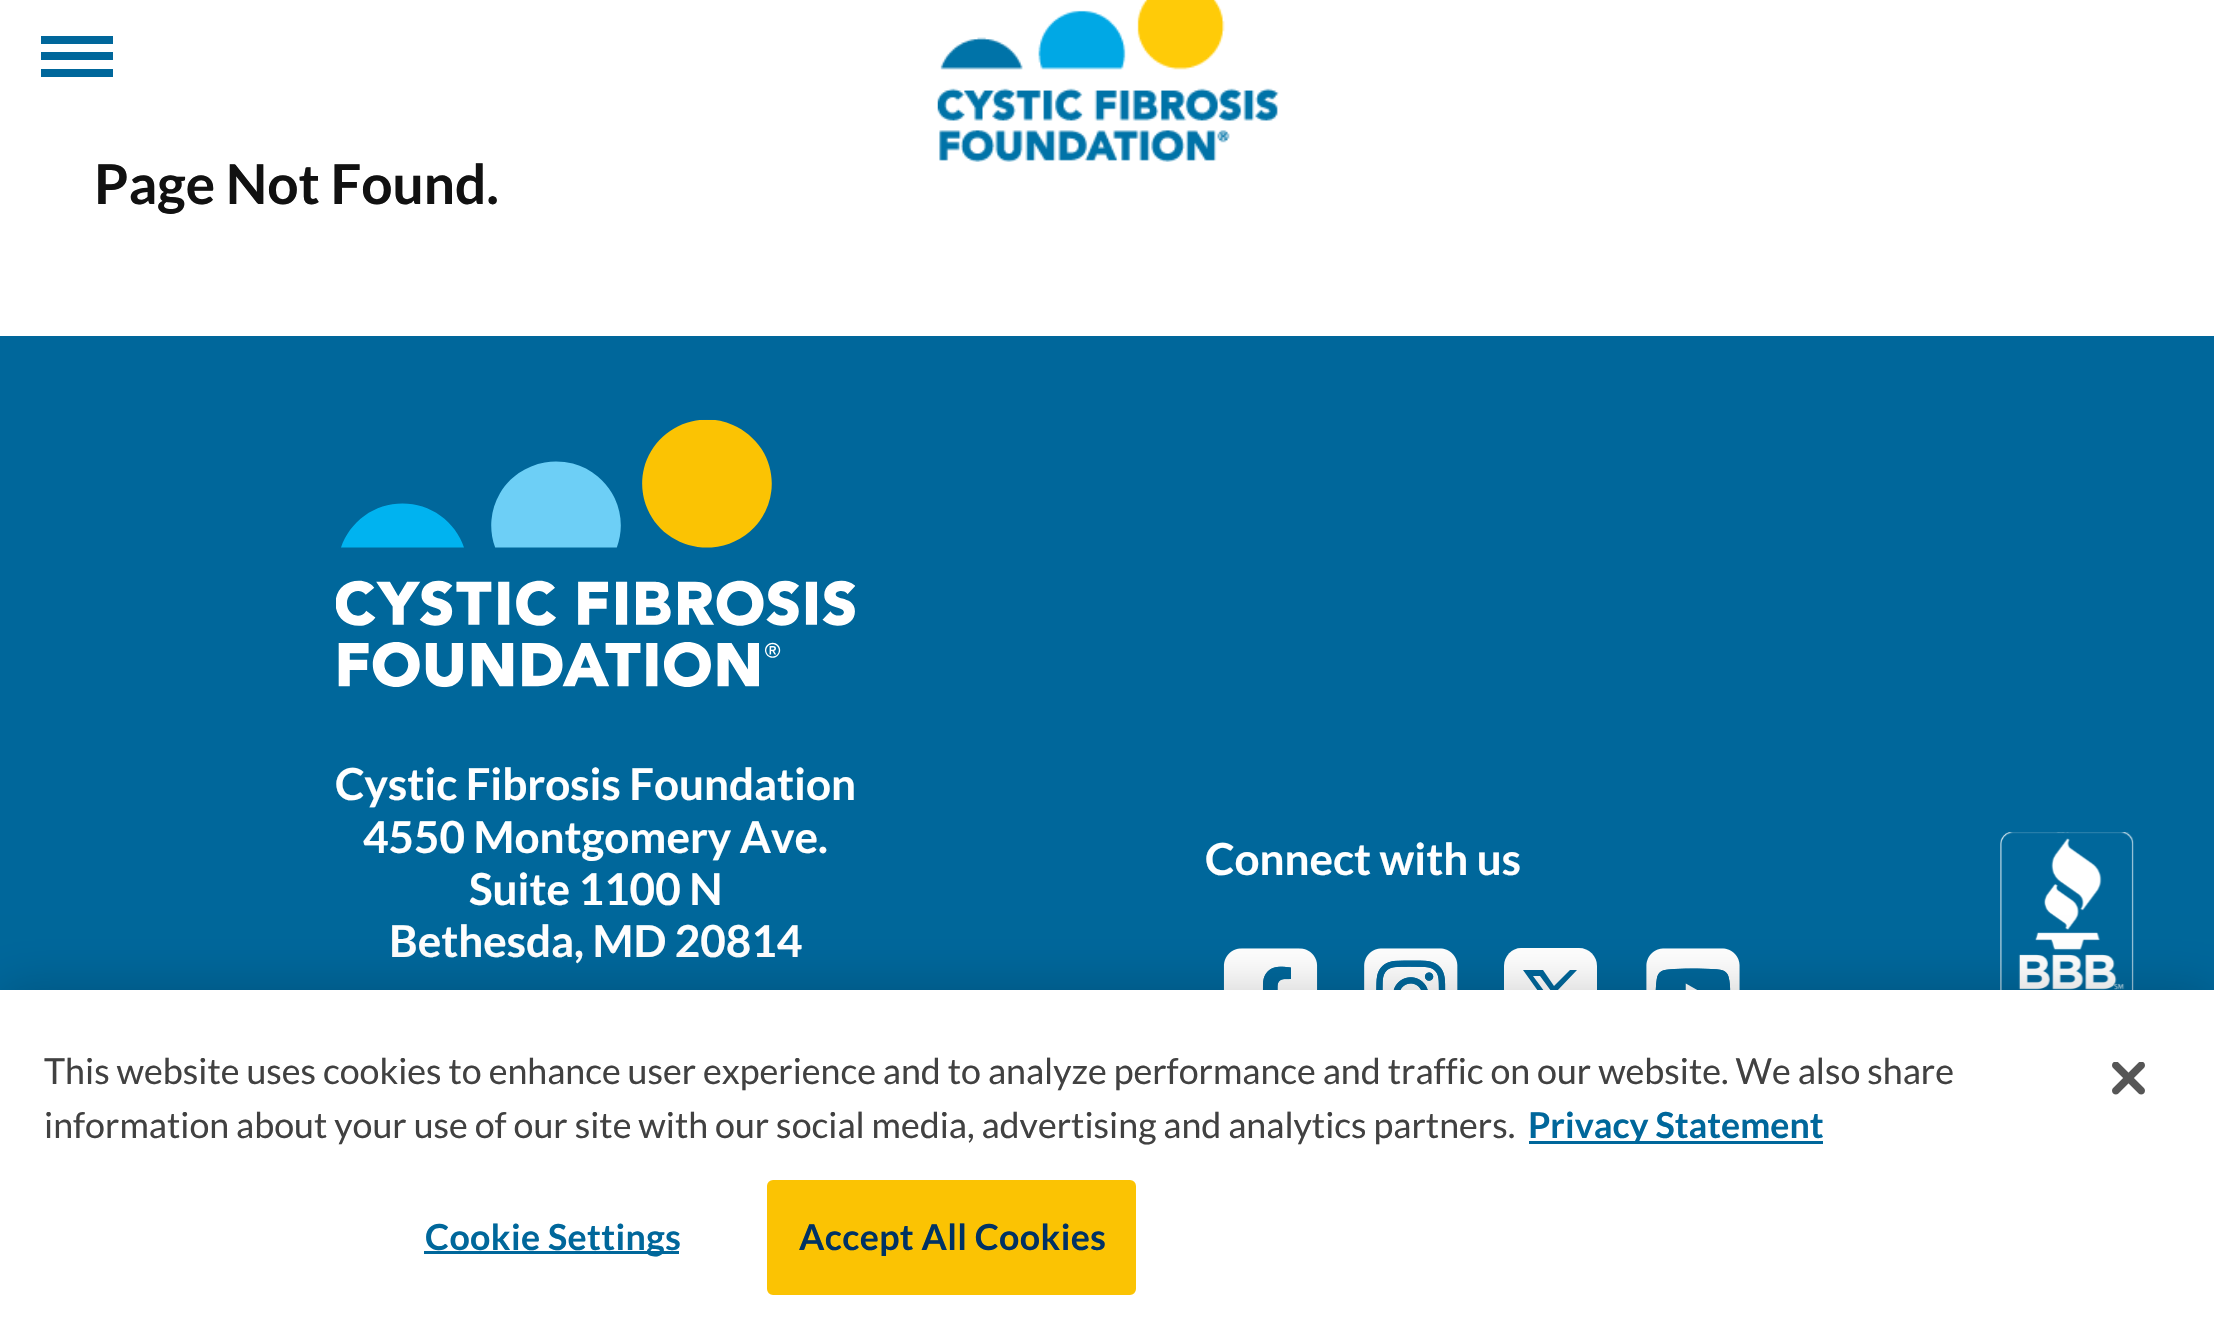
void draw(SkCanvas* canvas) {
	SkPaint paint;
	paint.setAntiAlias(true);
	auto spacedText = [&](const char* s, float x, float y, const SkFont& font, const SkPaint& ink, float letter, float word) {
		std::vector<SkGlyphID> glyphs(font.countText(s, strlen(s), SkTextEncoding::kUTF8));
		std::vector<float> xs(glyphs.size());
		font.textToGlyphs(s, strlen(s), SkTextEncoding::kUTF8, glyphs);
		font.getXPos(glyphs, xs, x);
		float extra = 0;
		for (size_t i = 0; i < glyphs.size(); i++) {
			xs[i] += extra;
			extra += letter + word * (glyphs[i] == font.unicharToGlyph(' '));
		}
		canvas->drawTextBlob(SkTextBlob::MakeFromPosHGlyphs(glyphs, xs, y, font), 0, 0, ink);
	};
	auto svgPath = [&](const char* data, bool evenOdd = false) {
		SkPath result = *SkParsePath::FromSVGString(data);
		if (evenOdd) result.setFillType(SkPathFillType::kEvenOdd);
		return result;
	};
	canvas->clear(0xffffffff);
	paint.setColor(0xff00679b);
	canvas->drawRect(SkRect::MakeXYWH(41, 36, 72, 8), paint);
	canvas->drawRect(SkRect::MakeXYWH(41, 52, 72, 8), paint);
	canvas->drawRect(SkRect::MakeXYWH(41, 69, 72, 8), paint);
	canvas->drawImageRect(SkImages::DeferredFromEncodedData(SkData::MakeFromFileName("img1.png")), SkRect::MakeXYWH(937, 0, 342, 162), SkSamplingOptions());
	SkFont f1(fontMgr->matchFamilyStyle("Lato", SkFontStyle::Bold()), 55);
	f1.setSubpixel(true);
	paint.setColor(0xff111111);
	canvas->drawString("Page Not Found.", 94, 204, f1, paint);
	paint.setColor(0xff00679b);
	canvas->drawRect(SkRect::MakeXYWH(0, 336, 2214, 654), paint);
	canvas->drawImageRect(SkImages::DeferredFromEncodedData(SkData::MakeFromFileName("img2.png")), SkRect::MakeXYWH(336, 419, 519, 269), SkSamplingOptions());
	SkFont f2(fontMgr->matchFamilyStyle("Lato", SkFontStyle::Bold()), 44);
	f2.setSubpixel(true);
	paint.setColor(0xffffffff);
	canvas->drawString("Cystic Fibrosis Foundation", 335, 800, f2, paint);
	canvas->drawString("4550 Montgomery Ave.", 363, 853, f2, paint);
	canvas->drawString("Suite 1100 N", 469, 905, f2, paint);
	canvas->drawString("Bethesda, MD 20814", 389, 957, f2, paint);
	canvas->drawString("Connect with us", 1205, 875, f2, paint);
	canvas->drawImageRect(SkImages::DeferredFromEncodedData(SkData::MakeFromFileName("img3.png")), SkRect::MakeXYWH(1223, 948, 95, 42), SkSamplingOptions());
	canvas->drawImageRect(SkImages::DeferredFromEncodedData(SkData::MakeFromFileName("img4.png")), SkRect::MakeXYWH(1364, 948, 94, 42), SkSamplingOptions());
	canvas->drawPath(svgPath("M1521 948H1579C1589 948 1597 956 1597 966V1024C1597 1034 1589 1041 1579 1041H1521C1512 1041 1504 1034 1504 1024V966C1504 956 1512 948 1521 948Z", true), paint);
	paint.setColor(0xff00679b);
	canvas->drawPath(svgPath("M1561 1014L1533 976H1540L1568 1014ZM1522 1020H1530L1546 1003L1558 1020H1578L1557 991L1577 970H1570L1554 986L1543 970H1523L1543 998Z", true), paint);
	canvas->drawImageRect(SkImages::DeferredFromEncodedData(SkData::MakeFromFileName("img5.png")), SkRect::MakeXYWH(1646, 948, 94, 42), SkSamplingOptions());
	canvas->drawImageRect(SkImages::DeferredFromEncodedData(SkData::MakeFromFileName("img6.png")), SkRect::MakeXYWH(2000, 832, 134, 158), SkSamplingOptions());
	paint.setColor(0x33000000);
	paint.setMaskFilter(SkMaskFilter::MakeBlur(kNormal_SkBlurStyle, 25));
	canvas->drawRect(SkRect::MakeXYWH(0, 990, 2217, 349), paint);
	paint.setMaskFilter(nullptr);
	paint.setColor(0xffffffff);
	canvas->drawRect(SkRect::MakeXYWH(0, 990, 2214, 349), paint);
	SkFont f3(fontMgr->matchFamilyStyle("Lato", SkFontStyle::Normal()), 35.77);
	f3.setSubpixel(true);
	paint.setColor(0xff414141);
	canvas->drawString("This website uses cookies to enhance user experience and to analyze performance and traffic on our website. We also share", 44, 1084, f3, paint);
	canvas->drawString("information about your use of our site with our social media, advertising and analytics partners.", 44, 1138, f3, paint);
	paint.setColor(0xff00679b);
	canvas->drawRect(SkRect::MakeXYWH(1529, 1141, 294, 3), paint);
	SkFont f4(fontMgr->matchFamilyStyle("Lato", SkFontStyle::Bold()), 35.77);
	f4.setSubpixel(true);
	canvas->drawString("Privacy Statement", 1528, 1138, f4, paint);
	canvas->drawRect(SkRect::MakeXYWH(424, 1251, 255, 3), paint);
	spacedText("Cookie Settings", 425, 1250, f4, paint, 0.4, 0);
	paint.setColor(0xfffbc303);
	canvas->drawRoundRect(SkRect::MakeXYWH(768.5, 1181.5, 366, 112), 4.5, 4.5, paint);
	paint.setStroke(true);
	paint.setStrokeWidth(3);
	canvas->drawRoundRect(SkRect::MakeXYWH(768.5, 1181.5, 366, 112), 4.5, 4.5, paint);
	paint.setStroke(false);
	paint.setColor(0xff003264);
	spacedText("Accept All Cookies", 799, 1250, f4, paint, 0.4, 0);
	canvas->drawImageRect(SkImages::DeferredFromEncodedData(SkData::MakeFromFileName("img7.png")), SkRect::MakeXYWH(2112, 1062, 33, 33), SkSamplingOptions());
}
